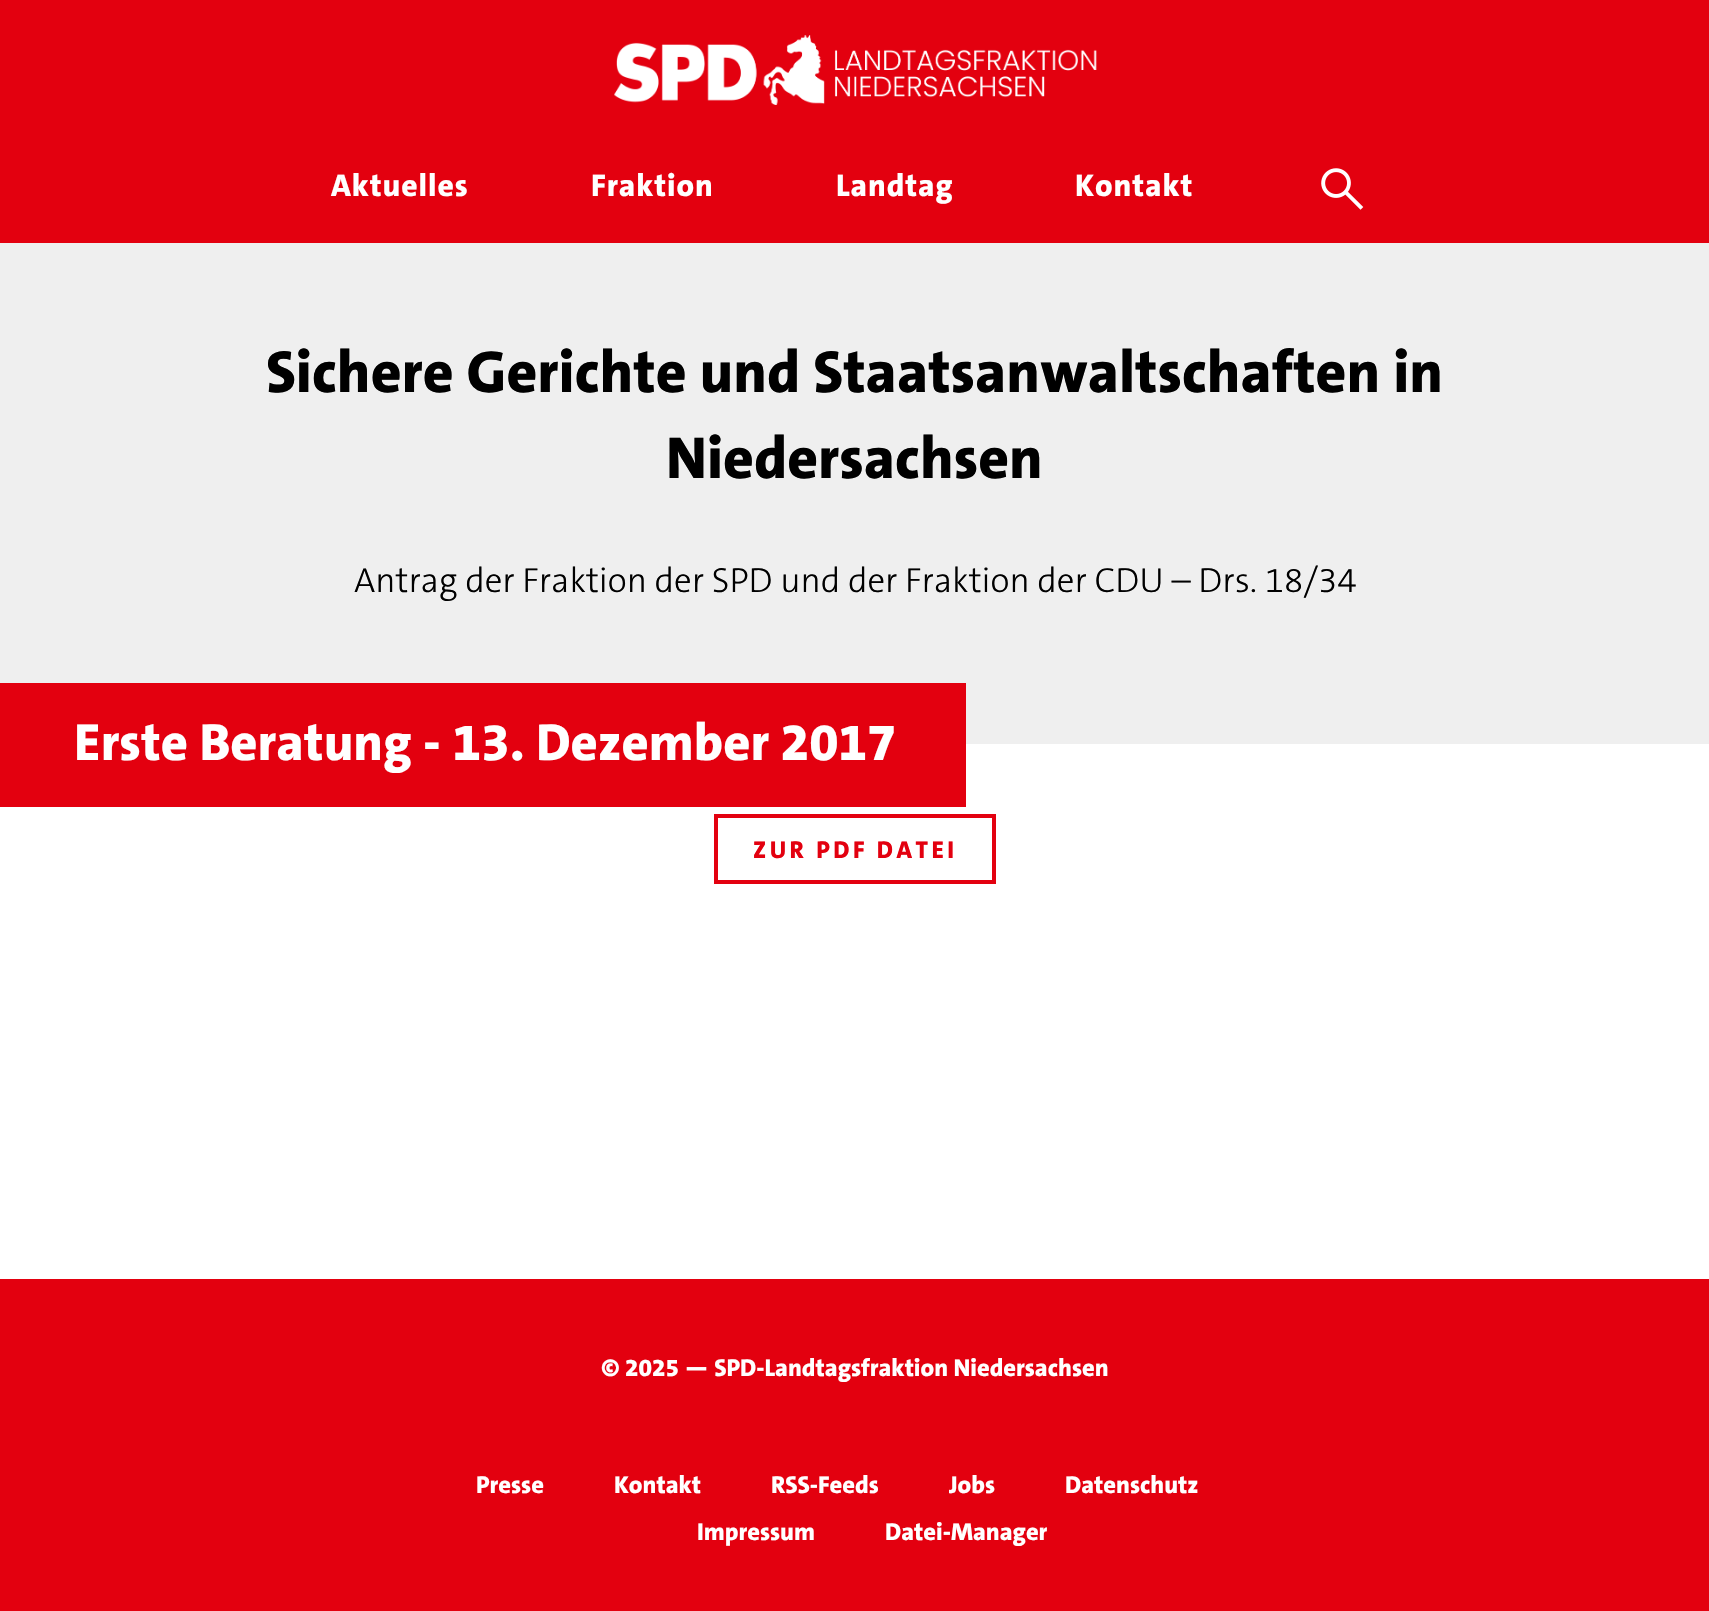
void draw(SkCanvas* canvas) {
	SkPaint paint;
	paint.setAntiAlias(true);
	auto spacedText = [&](const char* s, float x, float y, const SkFont& font, const SkPaint& ink, float letter, float word) {
		std::vector<SkGlyphID> glyphs(font.countText(s, strlen(s), SkTextEncoding::kUTF8));
		std::vector<float> xs(glyphs.size());
		font.textToGlyphs(s, strlen(s), SkTextEncoding::kUTF8, glyphs);
		font.getXPos(glyphs, xs, x);
		float extra = 0;
		for (size_t i = 0; i < glyphs.size(); i++) {
			xs[i] += extra;
			extra += letter + word * (glyphs[i] == font.unicharToGlyph(' '));
		}
		canvas->drawTextBlob(SkTextBlob::MakeFromPosHGlyphs(glyphs, xs, y, font), 0, 0, ink);
	};
	canvas->clear(0xffffffff);
	paint.setColor(0xffe3000f);
	canvas->drawRect(SkRect::MakeXYWH(0, 0, 1709, 243), paint);
	canvas->drawImageRect(SkImages::DeferredFromEncodedData(SkData::MakeFromFileName("img1.png")), SkRect::MakeXYWH(614, 35, 483, 70), SkSamplingOptions());
	SkFont f1(fontMgr->matchFamilyStyle("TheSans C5", SkFontStyle(800, SkFontStyle::kNormal_Width, SkFontStyle::kUpright_Slant)), 31.5);
	f1.setSubpixel(true);
	paint.setColor(0xffffffff);
	spacedText("Aktuelles", 331, 196, f1, paint, 0.9, 0);
	spacedText("Fraktion", 591, 196, f1, paint, 0.9, 0);
	spacedText("Landtag", 836, 196, f1, paint, 0.9, 0);
	spacedText("Kontakt", 1075, 196, f1, paint, 0.9, 0);
	canvas->drawImageRect(SkImages::DeferredFromEncodedData(SkData::MakeFromFileName("img2.png")), SkRect::MakeXYWH(1321, 168, 43, 42), SkSamplingOptions());
	paint.setColor(0xffefefef);
	canvas->drawRect(SkRect::MakeXYWH(0, 243, 1709, 501), paint);
	SkFont f2(fontMgr->matchFamilyStyle("TheSans C5", SkFontStyle(800, SkFontStyle::kNormal_Width, SkFontStyle::kUpright_Slant)), 59.5);
	f2.setSubpixel(true);
	paint.setColor(0xff000000);
	canvas->drawString("Sichere Gerichte und Staatsanwaltschaften in", 266, 392, f2, paint);
	canvas->drawString("Niedersachsen", 666, 478, f2, paint);
	SkFont f3(fontMgr->matchFamilyStyle("TheSans C5", SkFontStyle(300, SkFontStyle::kNormal_Width, SkFontStyle::kUpright_Slant)), 35);
	f3.setSubpixel(true);
	canvas->drawString("Antrag der Fraktion der SPD und der Fraktion der CDU – Drs. 18/34", 354, 592, f3, paint);
	paint.setColor(0xffe3000f);
	canvas->drawRect(SkRect::MakeXYWH(0, 683, 966, 124), paint);
	SkFont f4(fontMgr->matchFamilyStyle("TheSans C5", SkFontStyle(800, SkFontStyle::kNormal_Width, SkFontStyle::kUpright_Slant)), 52.5);
	f4.setSubpixel(true);
	paint.setColor(0xffffffff);
	canvas->drawString("Erste Beratung - 13. Dezember 2017", 74, 760, f4, paint);
	paint.setStroke(true);
	paint.setStrokeWidth(4);
	paint.setColor(0xffe3000f);
	canvas->drawRect(SkRect::MakeXYWH(716, 816, 278, 66), paint);
	SkFont f5(fontMgr->matchFamilyStyle("TheSans C5", SkFontStyle(800, SkFontStyle::kNormal_Width, SkFontStyle::kUpright_Slant)), 24.5);
	f5.setSubpixel(true);
	paint.setStroke(false);
	spacedText("ZUR PDF DATEI", 753, 858, f5, paint, 3.5, 0);
	canvas->drawRect(SkRect::MakeXYWH(0, 1279, 1709, 332), paint);
	paint.setColor(0xffffffff);
	canvas->drawString("© 2025 — SPD-Landtagsfraktion Niedersachsen", 601, 1376, f5, paint);
	canvas->drawString("Presse", 476, 1493, f5, paint);
	canvas->drawString("Kontakt", 614, 1493, f5, paint);
	canvas->drawString("RSS-Feeds", 771, 1493, f5, paint);
	canvas->drawString("Jobs", 949, 1493, f5, paint);
	canvas->drawString("Datenschutz", 1065, 1493, f5, paint);
	canvas->drawString("Impressum", 697, 1540, f5, paint);
	canvas->drawString("Datei-Manager", 885, 1540, f5, paint);
}
